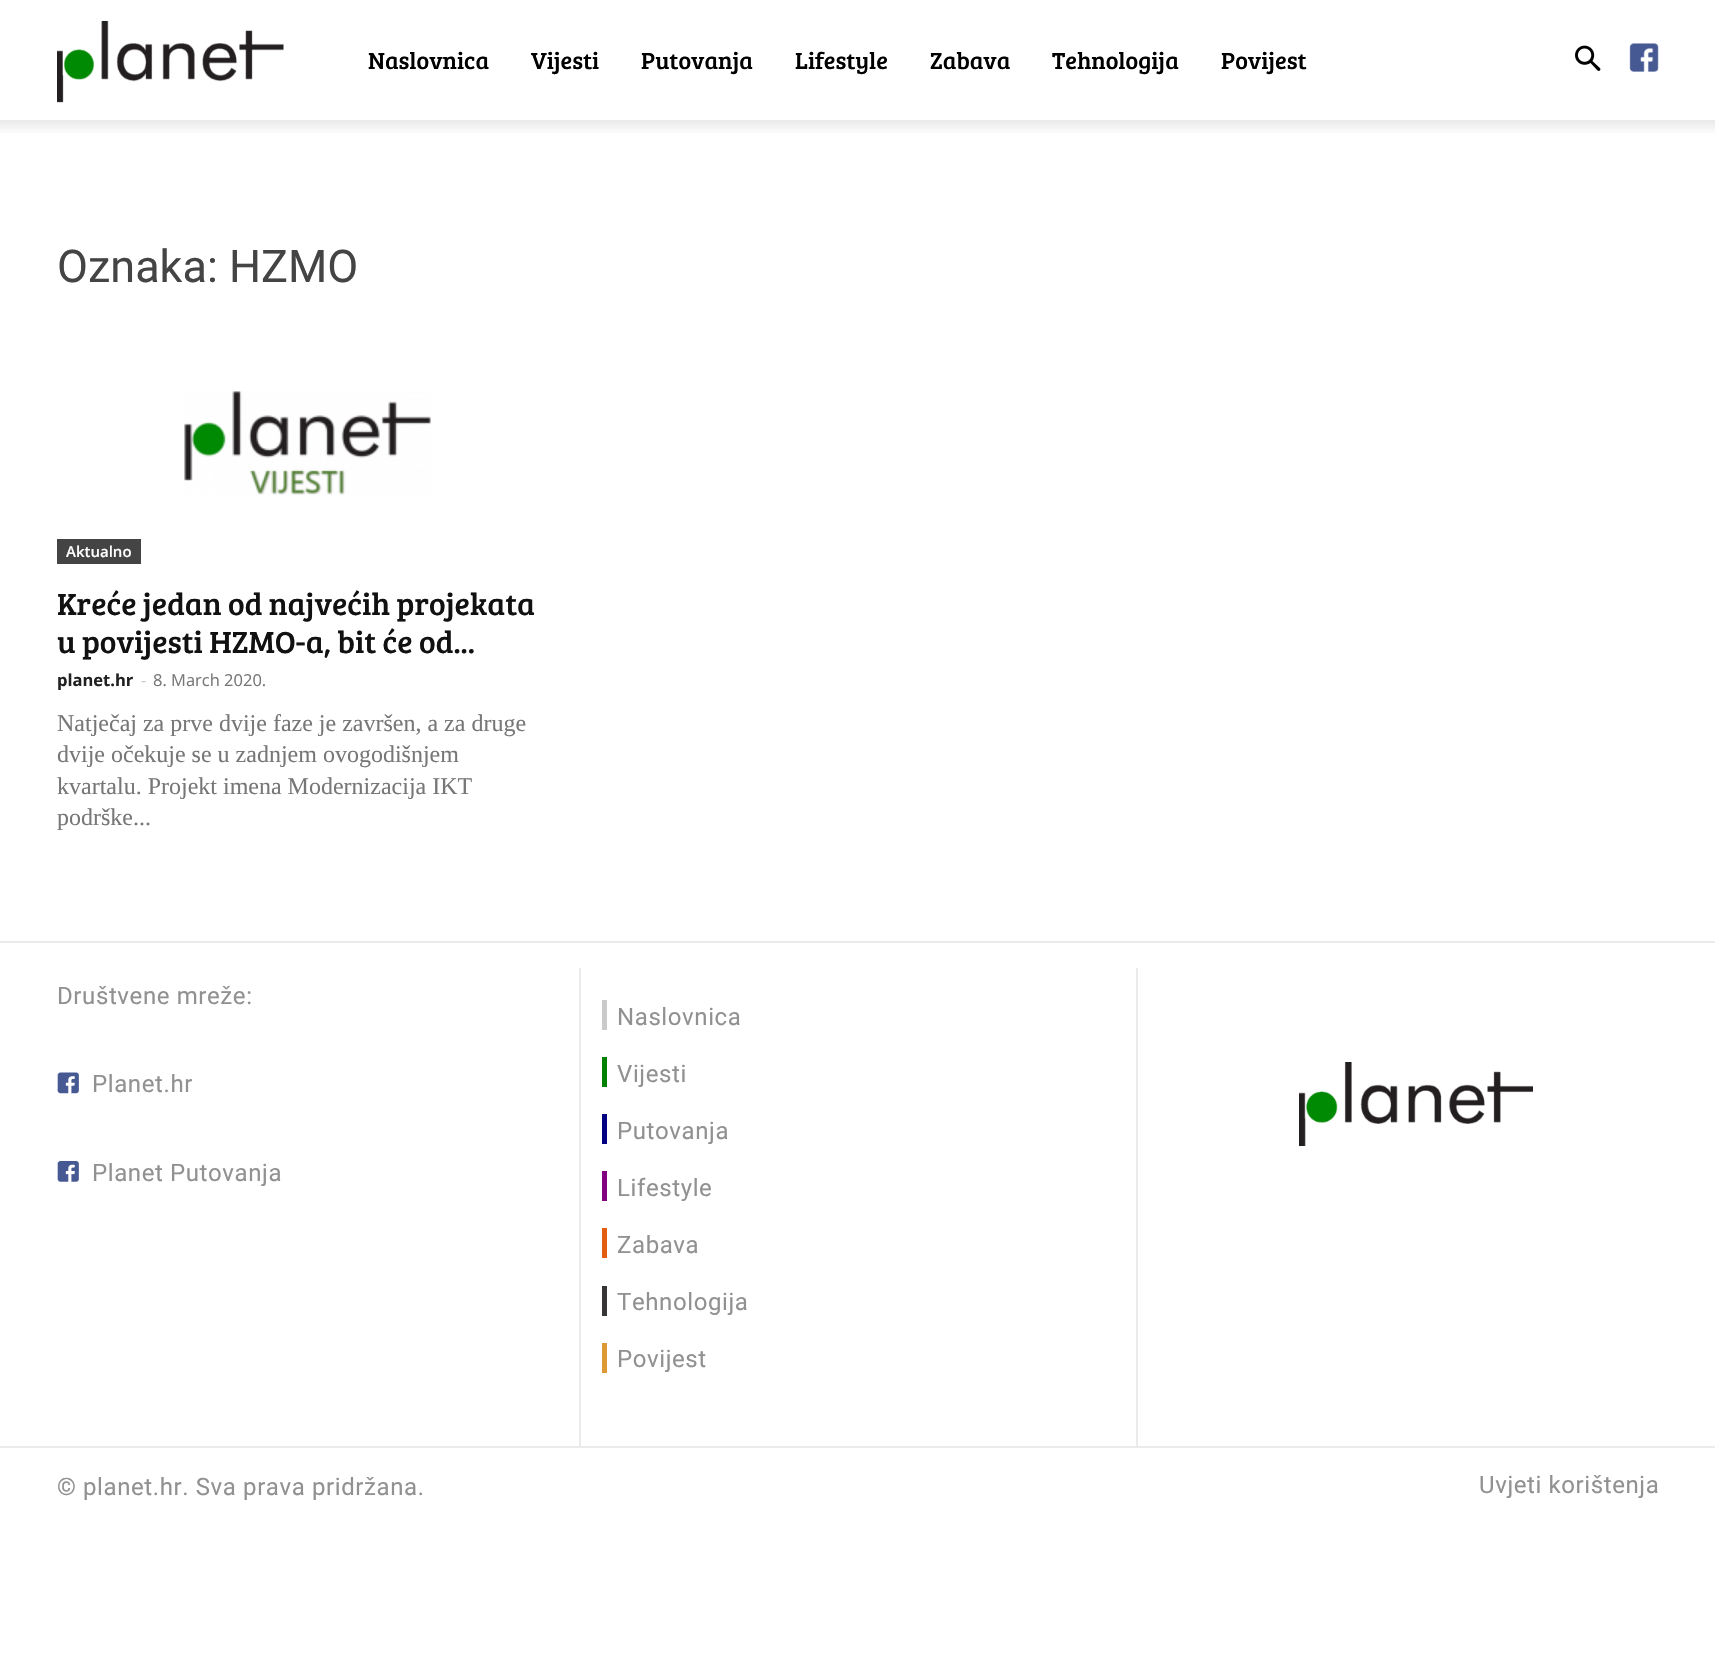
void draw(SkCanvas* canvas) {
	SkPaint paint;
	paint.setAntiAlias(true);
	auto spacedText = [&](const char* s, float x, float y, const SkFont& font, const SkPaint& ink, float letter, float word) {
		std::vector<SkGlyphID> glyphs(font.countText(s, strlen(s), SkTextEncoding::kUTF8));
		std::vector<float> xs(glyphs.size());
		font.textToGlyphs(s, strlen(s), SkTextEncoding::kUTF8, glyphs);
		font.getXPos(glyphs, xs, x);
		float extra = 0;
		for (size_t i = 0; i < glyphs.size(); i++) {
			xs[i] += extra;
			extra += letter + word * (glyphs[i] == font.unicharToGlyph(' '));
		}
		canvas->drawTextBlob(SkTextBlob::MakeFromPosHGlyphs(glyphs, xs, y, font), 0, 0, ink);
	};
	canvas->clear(0xffffffff);
	canvas->drawImageRect(SkImages::DeferredFromEncodedData(SkData::MakeFromFileName("img1.png")), SkRect::MakeXYWH(57, 20, 227, 83), SkSamplingOptions());
	SkFont f1(fontMgr->matchFamilyStyle("Bree Serif", SkFontStyle::Normal()), 24);
	f1.setSubpixel(true);
	paint.setColor(0xff000000);
	canvas->drawString("Naslovnica", 368, 69, f1, paint);
	canvas->drawString("Vijesti", 531, 69, f1, paint);
	canvas->drawString("Putovanja", 641, 69, f1, paint);
	canvas->drawString("Lifestyle", 795, 69, f1, paint);
	canvas->drawString("Zabava", 930, 69, f1, paint);
	canvas->drawString("Tehnologija", 1052, 69, f1, paint);
	canvas->drawString("Povijest", 1221, 69, f1, paint);
	canvas->drawImageRect(SkImages::DeferredFromEncodedData(SkData::MakeFromFileName("img2.png")), SkRect::MakeXYWH(1575, 45, 26, 26), SkSamplingOptions());
	canvas->drawImageRect(SkImages::DeferredFromEncodedData(SkData::MakeFromFileName("img3.png")), SkRect::MakeXYWH(1629, 43, 30, 29), SkSamplingOptions());
	canvas->drawImageRect(SkImages::DeferredFromEncodedData(SkData::MakeFromFileName("img4.png")), SkRect::MakeXYWH(0, 120, 1715, 13), SkSamplingOptions());
	SkFont f2(fontMgr->matchFamilyStyle("Roboto", SkFontStyle::Normal()), 45);
	f2.setSubpixel(true);
	paint.setColor(0xff444444);
	canvas->drawString("Oznaka: HZMO", 57, 282, f2, paint);
	canvas->drawImageRect(SkImages::DeferredFromEncodedData(SkData::MakeFromFileName("img5.png")), SkRect::MakeXYWH(184, 391, 247, 104), SkSamplingOptions());
	canvas->drawRect(SkRect::MakeXYWH(57, 539, 84, 25), paint);
	SkFont f3(fontMgr->matchFamilyStyle("Open Sans", SkFontStyle(600, SkFontStyle::kNormal_Width, SkFontStyle::kUpright_Slant)), 15);
	f3.setSubpixel(true);
	paint.setColor(0xffffffff);
	canvas->drawString("Aktualno", 66, 557, f3, paint);
	SkFont f4(fontMgr->matchFamilyStyle("Bree Serif", SkFontStyle::Normal()), 31.5);
	f4.setSubpixel(true);
	paint.setColor(0xff111111);
	canvas->drawString("Kreće jedan od najvećih projekata", 57, 615, f4, paint);
	canvas->drawString("u povijesti HZMO-a, bit će od...", 57, 653, f4, paint);
	SkFont f5(fontMgr->matchFamilyStyle("Open Sans", SkFontStyle::Bold()), 16.5);
	f5.setSubpixel(true);
	paint.setColor(0xff212121);
	canvas->drawString("planet.hr", 57, 686, f5, paint);
	SkFont f6(fontMgr->matchFamilyStyle("Open Sans", SkFontStyle::Normal()), 16.5);
	f6.setSubpixel(true);
	paint.setColor(0xffcccccc);
	canvas->drawString("-", 141, 686, f6, paint);
	paint.setColor(0xff777777);
	canvas->drawString("8. March 2020.", 153, 686, f6, paint);
	SkFont f7(fontMgr->matchFamilyStyle("Liberation Serif", SkFontStyle::Normal()), 24);
	f7.setSubpixel(true);
	canvas->drawString("Natječaj za prve dvije faze je završen, a za druge", 57, 731, f7, paint);
	canvas->drawString("dvije očekuje se u zadnjem ovogodišnjem", 57, 762, f7, paint);
	canvas->drawString("kvartalu. Projekt imena Modernizacija IKT", 57, 794, f7, paint);
	canvas->drawString("podrške...", 57, 825, f7, paint);
	paint.setColor(0xffebebeb);
	canvas->drawRect(SkRect::MakeXYWH(0, 941, 1715, 2), paint);
	SkFont f8(fontMgr->matchFamilyStyle("Roboto", SkFontStyle::Normal()), 24);
	f8.setSubpixel(true);
	paint.setColor(0xff919191);
	spacedText("Društvene mreže:", 57, 1004, f8, paint, 0.6, 0);
	canvas->drawImageRect(SkImages::DeferredFromEncodedData(SkData::MakeFromFileName("img6.png")), SkRect::MakeXYWH(57, 1072, 22, 22), SkSamplingOptions());
	spacedText("Planet.hr", 92, 1092, f8, paint, 0.6, 0);
	canvas->drawImageRect(SkImages::DeferredFromEncodedData(SkData::MakeFromFileName("img7.png")), SkRect::MakeXYWH(57, 1161, 22, 21), SkSamplingOptions());
	spacedText("Planet Putovanja", 92, 1181, f8, paint, 0.6, 0);
	paint.setColor(0xffebebeb);
	canvas->drawRect(SkRect::MakeXYWH(1136, 968, 2, 478), paint);
	canvas->drawRect(SkRect::MakeXYWH(579, 968, 2, 478), paint);
	paint.setColor(0xffc9cac9);
	canvas->drawRect(SkRect::MakeXYWH(602, 1000, 5, 30), paint);
	paint.setColor(0xff919191);
	spacedText("Naslovnica", 617, 1025, f8, paint, 0.6, 0);
	paint.setColor(0xff008000);
	canvas->drawRect(SkRect::MakeXYWH(602, 1057, 5, 30), paint);
	paint.setColor(0xff919191);
	spacedText("Vijesti", 617, 1082, f8, paint, 0.6, 0);
	paint.setColor(0xff000080);
	canvas->drawRect(SkRect::MakeXYWH(602, 1114, 5, 30), paint);
	paint.setColor(0xff919191);
	spacedText("Putovanja", 617, 1139, f8, paint, 0.6, 0);
	paint.setColor(0xff800080);
	canvas->drawRect(SkRect::MakeXYWH(602, 1171, 5, 30), paint);
	paint.setColor(0xff919191);
	spacedText("Lifestyle", 617, 1196, f8, paint, 0.6, 0);
	paint.setColor(0xffe25d0f);
	canvas->drawRect(SkRect::MakeXYWH(602, 1228, 5, 30), paint);
	paint.setColor(0xff919191);
	spacedText("Zabava", 617, 1253, f8, paint, 0.6, 0);
	paint.setColor(0xff373535);
	canvas->drawRect(SkRect::MakeXYWH(602, 1286, 5, 30), paint);
	paint.setColor(0xff919191);
	spacedText("Tehnologija", 617, 1310, f8, paint, 0.6, 0);
	paint.setColor(0xffdd9933);
	canvas->drawRect(SkRect::MakeXYWH(602, 1343, 5, 30), paint);
	paint.setColor(0xff919191);
	spacedText("Povijest", 617, 1367, f8, paint, 0.6, 0);
	canvas->drawImageRect(SkImages::DeferredFromEncodedData(SkData::MakeFromFileName("img8.png")), SkRect::MakeXYWH(1299, 1062, 234, 84), SkSamplingOptions());
	paint.setColor(0xffebebeb);
	canvas->drawRect(SkRect::MakeXYWH(0, 1446, 1715, 2), paint);
	paint.setColor(0xff919191);
	spacedText("© planet.hr. Sva prava pridržana.", 57, 1495, f8, paint, 0.6, 0);
	spacedText("Uvjeti korištenja", 1479, 1493, f8, paint, 0.6, 0);
}
